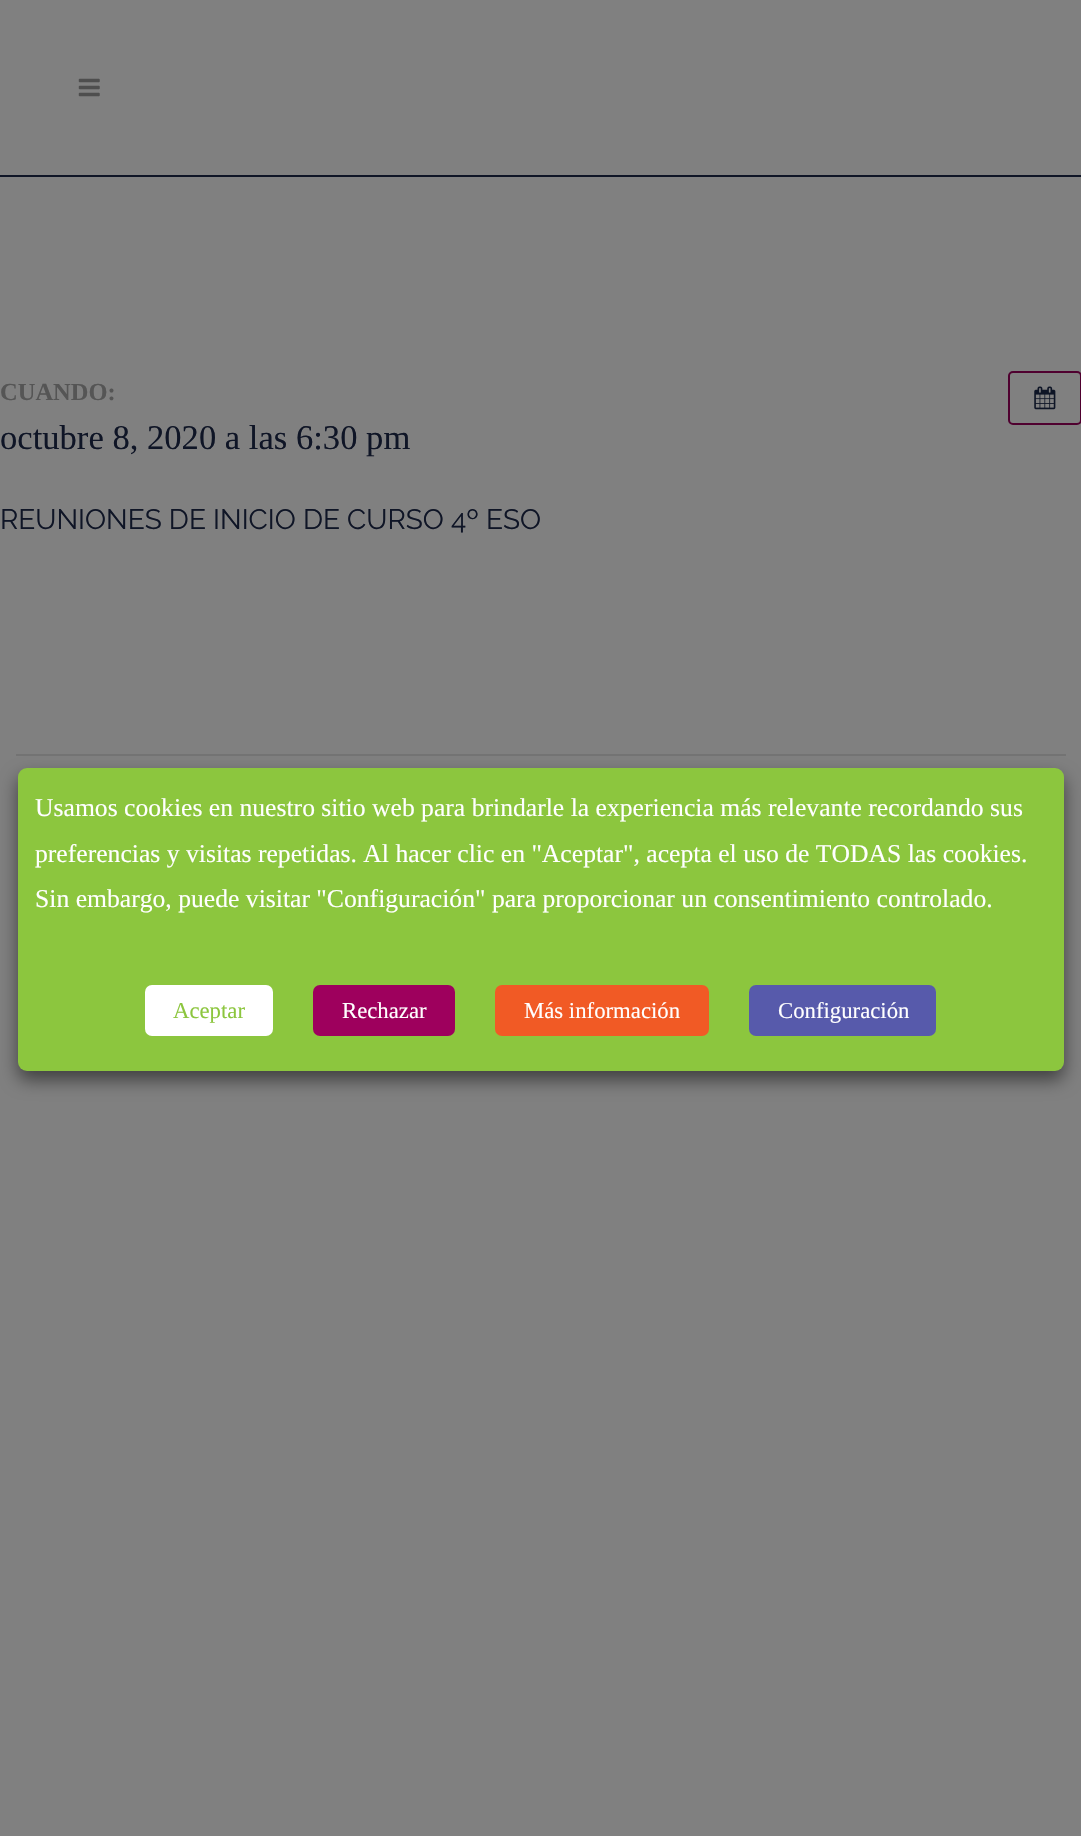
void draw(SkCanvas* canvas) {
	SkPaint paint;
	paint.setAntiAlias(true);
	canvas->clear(0xff808080);
	paint.setColor(0xff0f1526);
	canvas->drawRect(SkRect::MakeXYWH(0, 175, 1081, 2), paint);
	canvas->drawImageRect(SkImages::DeferredFromEncodedData(SkData::MakeFromFileName("img1.png")), SkRect::MakeXYWH(78, 78, 22, 19), SkSamplingOptions());
	SkFont f1(fontMgr->matchFamilyStyle("Liberation Serif", SkFontStyle::Bold()), 24.5);
	f1.setSubpixel(true);
	paint.setColor(0xff555555);
	canvas->drawString("CUANDO:", 0, 400, f1, paint);
	SkFont f2(fontMgr->matchFamilyStyle("Liberation Serif", SkFontStyle::Normal()), 34.6);
	f2.setSubpixel(true);
	paint.setColor(0xff0f1526);
	canvas->drawString("octubre 8, 2020 a las 6:30 pm", 0, 449, f2, paint);
	paint.setStroke(true);
	paint.setStrokeWidth(2);
	paint.setColor(0xff4f002f);
	canvas->drawRoundRect(SkRect::MakeXYWH(1009, 372, 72, 52), 4, 4, paint);
	canvas->drawImageRect(SkImages::DeferredFromEncodedData(SkData::MakeFromFileName("img2.png")), SkRect::MakeXYWH(1034, 386, 22, 24), SkSamplingOptions());
	SkFont f3(fontMgr->matchFamilyStyle("Raleway", SkFontStyle::Normal()), 28);
	f3.setSubpixel(true);
	paint.setStroke(false);
	paint.setColor(0xff0f1526);
	canvas->drawString("REUNIONES DE INICIO DE CURSO 4º ESO", 0, 529, f3, paint);
	paint.setColor(0xff737373);
	canvas->drawRect(SkRect::MakeXYWH(16, 754, 1050, 2), paint);
	paint.setColor(0x80000000);
	paint.setMaskFilter(SkMaskFilter::MakeBlur(kNormal_SkBlurStyle, 9));
	canvas->drawRoundRect(SkRect::MakeXYWH(18, 777, 1046, 303), 9, 9, paint);
	paint.setMaskFilter(nullptr);
	paint.setColor(0xff8cc63e);
	canvas->drawRoundRect(SkRect::MakeXYWH(18, 768, 1046, 303), 9, 9, paint);
	SkFont f4(fontMgr->matchFamilyStyle("Liberation Serif", SkFontStyle::Normal()), 25.65);
	f4.setSubpixel(true);
	paint.setColor(0xffffffff);
	canvas->drawString("Usamos cookies en nuestro sitio web para brindarle la experiencia más relevante recordando sus", 35, 816, f4, paint);
	canvas->drawString("preferencias y visitas repetidas. Al hacer clic en \"Aceptar\", acepta el uso de TODAS las cookies.", 35, 862, f4, paint);
	canvas->drawString("Sin embargo, puede visitar \"Configuración\" para proporcionar un consentimiento controlado.", 35, 907, f4, paint);
	canvas->drawRoundRect(SkRect::MakeXYWH(145, 985, 128, 51), 7, 7, paint);
	SkFont f5(fontMgr->matchFamilyStyle("Liberation Serif", SkFontStyle::Normal()), 22.75);
	f5.setSubpixel(true);
	paint.setColor(0xff8cc63e);
	canvas->drawString("Aceptar", 173, 1018, f5, paint);
	paint.setColor(0xff9e005d);
	canvas->drawRoundRect(SkRect::MakeXYWH(313, 985, 142, 51), 7, 7, paint);
	paint.setColor(0xffffffff);
	canvas->drawString("Rechazar", 342, 1018, f5, paint);
	paint.setColor(0xfff15a25);
	canvas->drawRoundRect(SkRect::MakeXYWH(495, 985, 214, 51), 7, 7, paint);
	paint.setColor(0xffffffff);
	canvas->drawString("Más información", 524, 1018, f5, paint);
	paint.setColor(0xff575aab);
	canvas->drawRoundRect(SkRect::MakeXYWH(749, 985, 187, 51), 7, 7, paint);
	paint.setColor(0xffffffff);
	canvas->drawString("Configuración", 778, 1018, f5, paint);
}
